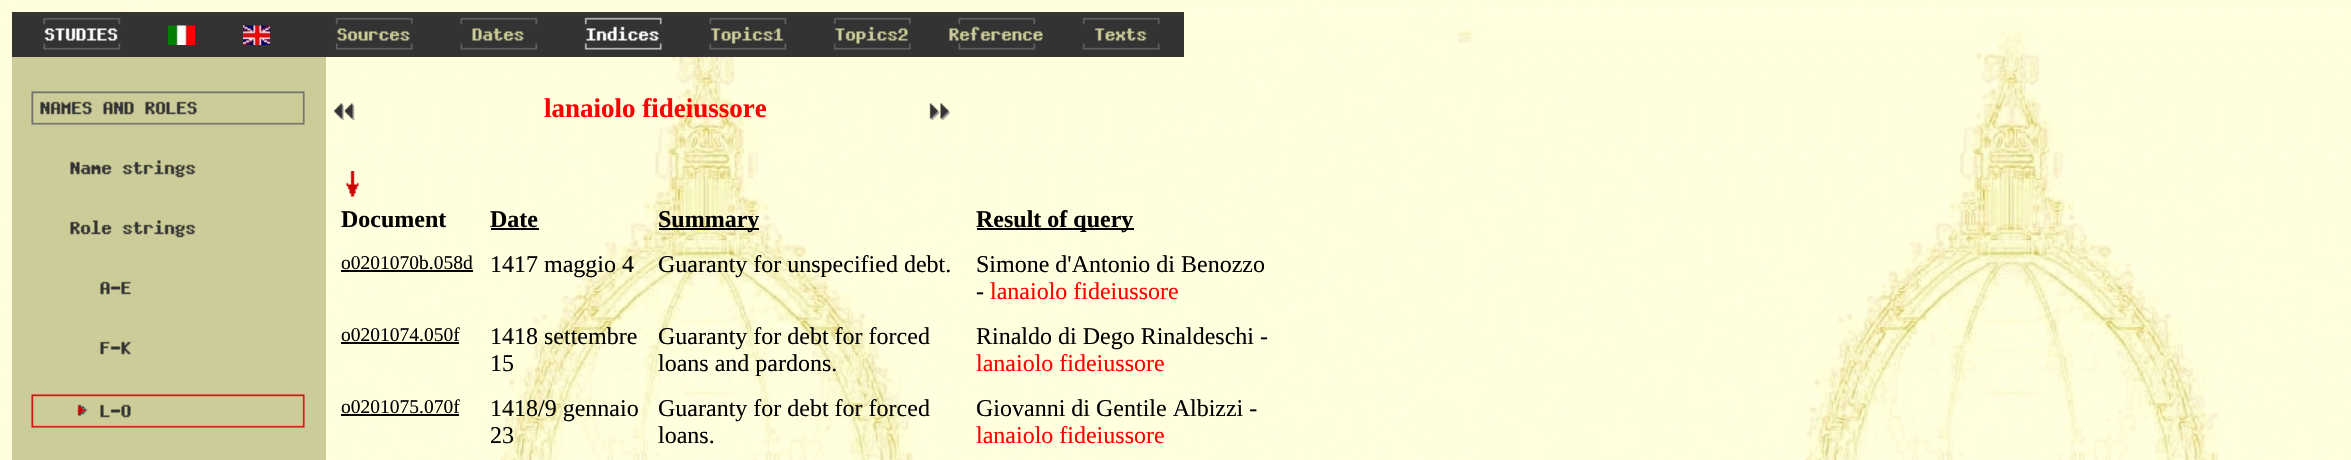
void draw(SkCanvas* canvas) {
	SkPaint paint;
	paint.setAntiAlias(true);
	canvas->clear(0xffffffff);
	canvas->drawImageRect(SkImages::DeferredFromEncodedData(SkData::MakeFromFileName("img1.png")), SkRect::MakeXYWH(0, 0, 2351, 460), SkSamplingOptions());
	paint.setColor(0xff333333);
	canvas->drawRect(SkRect::MakeXYWH(12, 12, 1172, 45), paint);
	canvas->drawImageRect(SkImages::DeferredFromEncodedData(SkData::MakeFromFileName("img2.png")), SkRect::MakeXYWH(43, 17, 78, 33), SkSamplingOptions());
	canvas->drawImageRect(SkImages::DeferredFromEncodedData(SkData::MakeFromFileName("img3.png")), SkRect::MakeXYWH(168, 25, 27, 20), SkSamplingOptions());
	canvas->drawImageRect(SkImages::DeferredFromEncodedData(SkData::MakeFromFileName("img4.png")), SkRect::MakeXYWH(243, 25, 27, 20), SkSamplingOptions());
	canvas->drawImageRect(SkImages::DeferredFromEncodedData(SkData::MakeFromFileName("img5.png")), SkRect::MakeXYWH(335, 17, 78, 33), SkSamplingOptions());
	canvas->drawImageRect(SkImages::DeferredFromEncodedData(SkData::MakeFromFileName("img6.png")), SkRect::MakeXYWH(460, 17, 78, 33), SkSamplingOptions());
	canvas->drawImageRect(SkImages::DeferredFromEncodedData(SkData::MakeFromFileName("img7.png")), SkRect::MakeXYWH(584, 17, 78, 33), SkSamplingOptions());
	canvas->drawImageRect(SkImages::DeferredFromEncodedData(SkData::MakeFromFileName("img8.png")), SkRect::MakeXYWH(709, 17, 78, 33), SkSamplingOptions());
	canvas->drawImageRect(SkImages::DeferredFromEncodedData(SkData::MakeFromFileName("img9.png")), SkRect::MakeXYWH(833, 17, 78, 33), SkSamplingOptions());
	canvas->drawImageRect(SkImages::DeferredFromEncodedData(SkData::MakeFromFileName("img10.png")), SkRect::MakeXYWH(949, 17, 94, 33), SkSamplingOptions());
	canvas->drawImageRect(SkImages::DeferredFromEncodedData(SkData::MakeFromFileName("img11.png")), SkRect::MakeXYWH(1082, 17, 78, 33), SkSamplingOptions());
	paint.setColor(0xffcccc99);
	canvas->drawRect(SkRect::MakeXYWH(12, 57, 314, 403), paint);
	canvas->drawImageRect(SkImages::DeferredFromEncodedData(SkData::MakeFromFileName("img12.png")), SkRect::MakeXYWH(31, 91, 274, 34), SkSamplingOptions());
	canvas->drawImageRect(SkImages::DeferredFromEncodedData(SkData::MakeFromFileName("img13.png")), SkRect::MakeXYWH(70, 160, 126, 18), SkSamplingOptions());
	canvas->drawImageRect(SkImages::DeferredFromEncodedData(SkData::MakeFromFileName("img14.png")), SkRect::MakeXYWH(70, 220, 126, 18), SkSamplingOptions());
	canvas->drawImageRect(SkImages::DeferredFromEncodedData(SkData::MakeFromFileName("img15.png")), SkRect::MakeXYWH(100, 281, 31, 14), SkSamplingOptions());
	canvas->drawImageRect(SkImages::DeferredFromEncodedData(SkData::MakeFromFileName("img16.png")), SkRect::MakeXYWH(100, 341, 31, 14), SkSamplingOptions());
	canvas->drawImageRect(SkImages::DeferredFromEncodedData(SkData::MakeFromFileName("img17.png")), SkRect::MakeXYWH(31, 394, 274, 34), SkSamplingOptions());
	canvas->drawImageRect(SkImages::DeferredFromEncodedData(SkData::MakeFromFileName("img18.png")), SkRect::MakeXYWH(334, 103, 21, 17), SkSamplingOptions());
	SkFont f1(fontMgr->matchFamilyStyle("Liberation Serif", SkFontStyle::Bold()), 27);
	f1.setSubpixel(true);
	paint.setColor(0xffff0000);
	canvas->drawString("lanaiolo fideiussore", 544, 117, f1, paint);
	canvas->drawImageRect(SkImages::DeferredFromEncodedData(SkData::MakeFromFileName("img19.png")), SkRect::MakeXYWH(929, 103, 21, 17), SkSamplingOptions());
	canvas->drawImageRect(SkImages::DeferredFromEncodedData(SkData::MakeFromFileName("img20.png")), SkRect::MakeXYWH(346, 171, 13, 26), SkSamplingOptions());
	SkFont f2(fontMgr->matchFamilyStyle("Liberation Serif", SkFontStyle::Bold()), 24);
	f2.setSubpixel(true);
	paint.setColor(0xff000000);
	canvas->drawString("Document", 341, 227, f2, paint);
	canvas->drawString("Date", 490, 227, f2, paint);
	canvas->drawRect(SkRect::MakeXYWH(491, 228, 48, 2), paint);
	canvas->drawRect(SkRect::MakeXYWH(659, 228, 100, 2), paint);
	canvas->drawString("Summary", 658, 227, f2, paint);
	canvas->drawRect(SkRect::MakeXYWH(977, 228, 157, 2), paint);
	canvas->drawString("Result of query", 976, 227, f2, paint);
	SkFont f3(fontMgr->matchFamilyStyle("Liberation Serif", SkFontStyle::Normal()), 19.5);
	f3.setSubpixel(true);
	canvas->drawString("o0201070b.058d", 341, 269, f3, paint);
	canvas->drawRect(SkRect::MakeXYWH(341, 270, 132, 2), paint);
	SkFont f4(fontMgr->matchFamilyStyle("Liberation Serif", SkFontStyle::Normal()), 24);
	f4.setSubpixel(true);
	canvas->drawString("1417 maggio 4", 490, 272, f4, paint);
	canvas->drawString("Guaranty for unspecified debt.", 658, 272, f4, paint);
	canvas->drawString("Simone d'Antonio di Benozzo", 976, 272, f4, paint);
	canvas->drawString("-", 976, 299, f4, paint);
	paint.setColor(0xffff0000);
	canvas->drawString("lanaiolo fideiussore", 990, 299, f4, paint);
	paint.setColor(0xff000000);
	canvas->drawString("o0201074.050f", 341, 341, f3, paint);
	canvas->drawRect(SkRect::MakeXYWH(341, 342, 118, 2), paint);
	canvas->drawString("1418 settembre", 490, 344, f4, paint);
	canvas->drawString("15", 490, 371, f4, paint);
	canvas->drawString("Guaranty for debt for forced", 658, 344, f4, paint);
	canvas->drawString("loans and pardons.", 658, 371, f4, paint);
	canvas->drawString("Rinaldo di Dego Rinaldeschi -", 976, 344, f4, paint);
	paint.setColor(0xffff0000);
	canvas->drawString("lanaiolo fideiussore", 976, 371, f4, paint);
	paint.setColor(0xff000000);
	canvas->drawString("o0201075.070f", 341, 413, f3, paint);
	canvas->drawRect(SkRect::MakeXYWH(341, 414, 118, 2), paint);
	canvas->drawString("1418/9 gennaio", 490, 416, f4, paint);
	canvas->drawString("23", 490, 443, f4, paint);
	canvas->drawString("Guaranty for debt for forced", 658, 416, f4, paint);
	canvas->drawString("loans.", 658, 443, f4, paint);
	canvas->drawString("Giovanni di Gentile Albizzi -", 976, 416, f4, paint);
	paint.setColor(0xffff0000);
	canvas->drawString("lanaiolo fideiussore", 976, 443, f4, paint);
}
